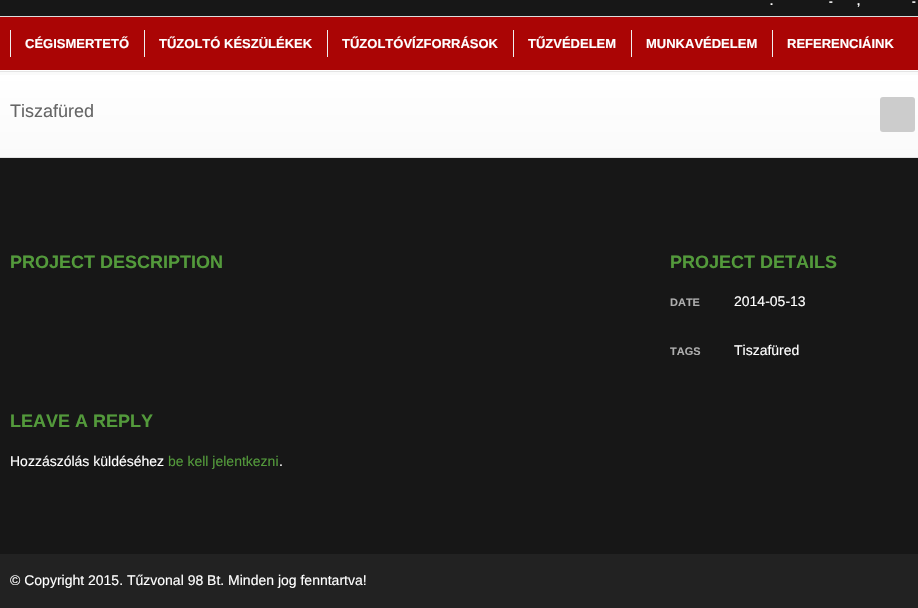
void draw(SkCanvas* canvas) {
	SkPaint paint;
	paint.setAntiAlias(true);
	canvas->clear(0xff171717);
	SkFont f1(fontMgr->matchFamilyStyle("Liberation Sans", SkFontStyle::Bold()), 11);
	f1.setSubpixel(true);
	paint.setColor(0xffffffff);
	canvas->drawString("-", 829, 5, f1, paint);
	canvas->drawString("-", 912, 5, f1, paint);
	canvas->drawString(".", 770, 5, f1, paint);
	canvas->drawString(",", 857, 5, f1, paint);
	paint.setColor(0xffaa0505);
	canvas->drawRect(SkRect::MakeXYWH(0, 17, 918, 53), paint);
	paint.setColor(0xffdddddd);
	canvas->drawRect(SkRect::MakeXYWH(0, 16, 918, 1), paint);
	paint.setColor(0xffffffff);
	canvas->drawRect(SkRect::MakeXYWH(0, 70, 918, 1), paint);
	paint.setColor(0xffefefef);
	canvas->drawRect(SkRect::MakeXYWH(10, 30, 1, 27), paint);
	SkFont f2(fontMgr->matchFamilyStyle("Liberation Sans", SkFontStyle::Bold()), 13);
	f2.setSubpixel(true);
	paint.setColor(0xffffffff);
	canvas->drawString("CÉGISMERTETŐ", 25, 48, f2, paint);
	paint.setColor(0xffefefef);
	canvas->drawRect(SkRect::MakeXYWH(144, 30, 1, 27), paint);
	paint.setColor(0xffffffff);
	canvas->drawString("TŰZOLTÓ KÉSZÜLÉKEK", 159, 48, f2, paint);
	paint.setColor(0xffefefef);
	canvas->drawRect(SkRect::MakeXYWH(327, 30, 1, 27), paint);
	paint.setColor(0xffffffff);
	canvas->drawString("TŰZOLTÓVÍZFORRÁSOK", 342, 48, f2, paint);
	paint.setColor(0xffefefef);
	canvas->drawRect(SkRect::MakeXYWH(513, 30, 1, 27), paint);
	paint.setColor(0xffffffff);
	canvas->drawString("TŰZVÉDELEM", 528, 48, f2, paint);
	paint.setColor(0xffefefef);
	canvas->drawRect(SkRect::MakeXYWH(631, 30, 1, 27), paint);
	paint.setColor(0xffffffff);
	canvas->drawString("MUNKAVÉDELEM", 646, 48, f2, paint);
	paint.setColor(0xffefefef);
	canvas->drawRect(SkRect::MakeXYWH(772, 30, 1, 27), paint);
	paint.setColor(0xffffffff);
	canvas->drawString("REFERENCIÁINK", 787, 48, f2, paint);
	{
		const SkColor colors[] = {0xfffafafa, 0xffffffff};
		const float stops[] = {0, 1};
		const SkPoint ends[] = {{459, 157}, {459, 72}};
		paint.setShader(SkGradientShader::MakeLinear(ends, colors, stops, 2, SkTileMode::kClamp));
		paint.setAlpha(255);
	}
	canvas->drawRect(SkRect::MakeXYWH(0, 75, 918, 82), paint);
	paint.setShader(nullptr);
	paint.setColor(0xfffafafa);
	canvas->drawRect(SkRect::MakeXYWH(0, 72, 918, 3), paint);
	paint.setColor(0xffe4e4e4);
	canvas->drawRect(SkRect::MakeXYWH(0, 71, 918, 1), paint);
	canvas->drawRect(SkRect::MakeXYWH(0, 157, 918, 1), paint);
	SkFont f3(fontMgr->matchFamilyStyle("Liberation Sans", SkFontStyle::Normal()), 18);
	f3.setSubpixel(true);
	paint.setColor(0xff666666);
	canvas->drawString("Tiszafüred", 10, 117, f3, paint);
	paint.setColor(0xffcccccc);
	canvas->drawRoundRect(SkRect::MakeXYWH(880, 97, 35, 35), 3, 3, paint);
	SkFont f4(fontMgr->matchFamilyStyle("Liberation Sans", SkFontStyle::Bold()), 18);
	f4.setSubpixel(true);
	paint.setColor(0xff539a3b);
	canvas->drawString("PROJECT DESCRIPTION", 10, 268, f4, paint);
	canvas->drawString("PROJECT DETAILS", 670, 268, f4, paint);
	paint.setColor(0xffaeaeae);
	canvas->drawString("DATE", 670, 306, f1, paint);
	SkFont f5(fontMgr->matchFamilyStyle("Liberation Sans", SkFontStyle::Normal()), 14);
	f5.setSubpixel(true);
	paint.setColor(0xffffffff);
	canvas->drawString("2014-05-13", 734, 306, f5, paint);
	paint.setColor(0xffaeaeae);
	canvas->drawString("TAGS", 670, 355, f1, paint);
	paint.setColor(0xffffffff);
	canvas->drawString("Tiszafüred", 734, 355, f5, paint);
	paint.setColor(0xff539a3b);
	canvas->drawString("LEAVE A REPLY", 10, 427, f4, paint);
	paint.setColor(0xffffffff);
	canvas->drawString("Hozzászólás küldéséhez", 10, 466, f5, paint);
	paint.setColor(0xff539a3b);
	canvas->drawString("be kell jelentkezni", 168, 466, f5, paint);
	paint.setColor(0xffffffff);
	canvas->drawString(".", 279, 466, f5, paint);
	paint.setColor(0xff222222);
	canvas->drawRect(SkRect::MakeXYWH(0, 554, 918, 54), paint);
	paint.setColor(0xffffffff);
	canvas->drawString("© Copyright 2015. Tűzvonal 98 Bt. Minden jog fenntartva!", 10, 585, f5, paint);
}
